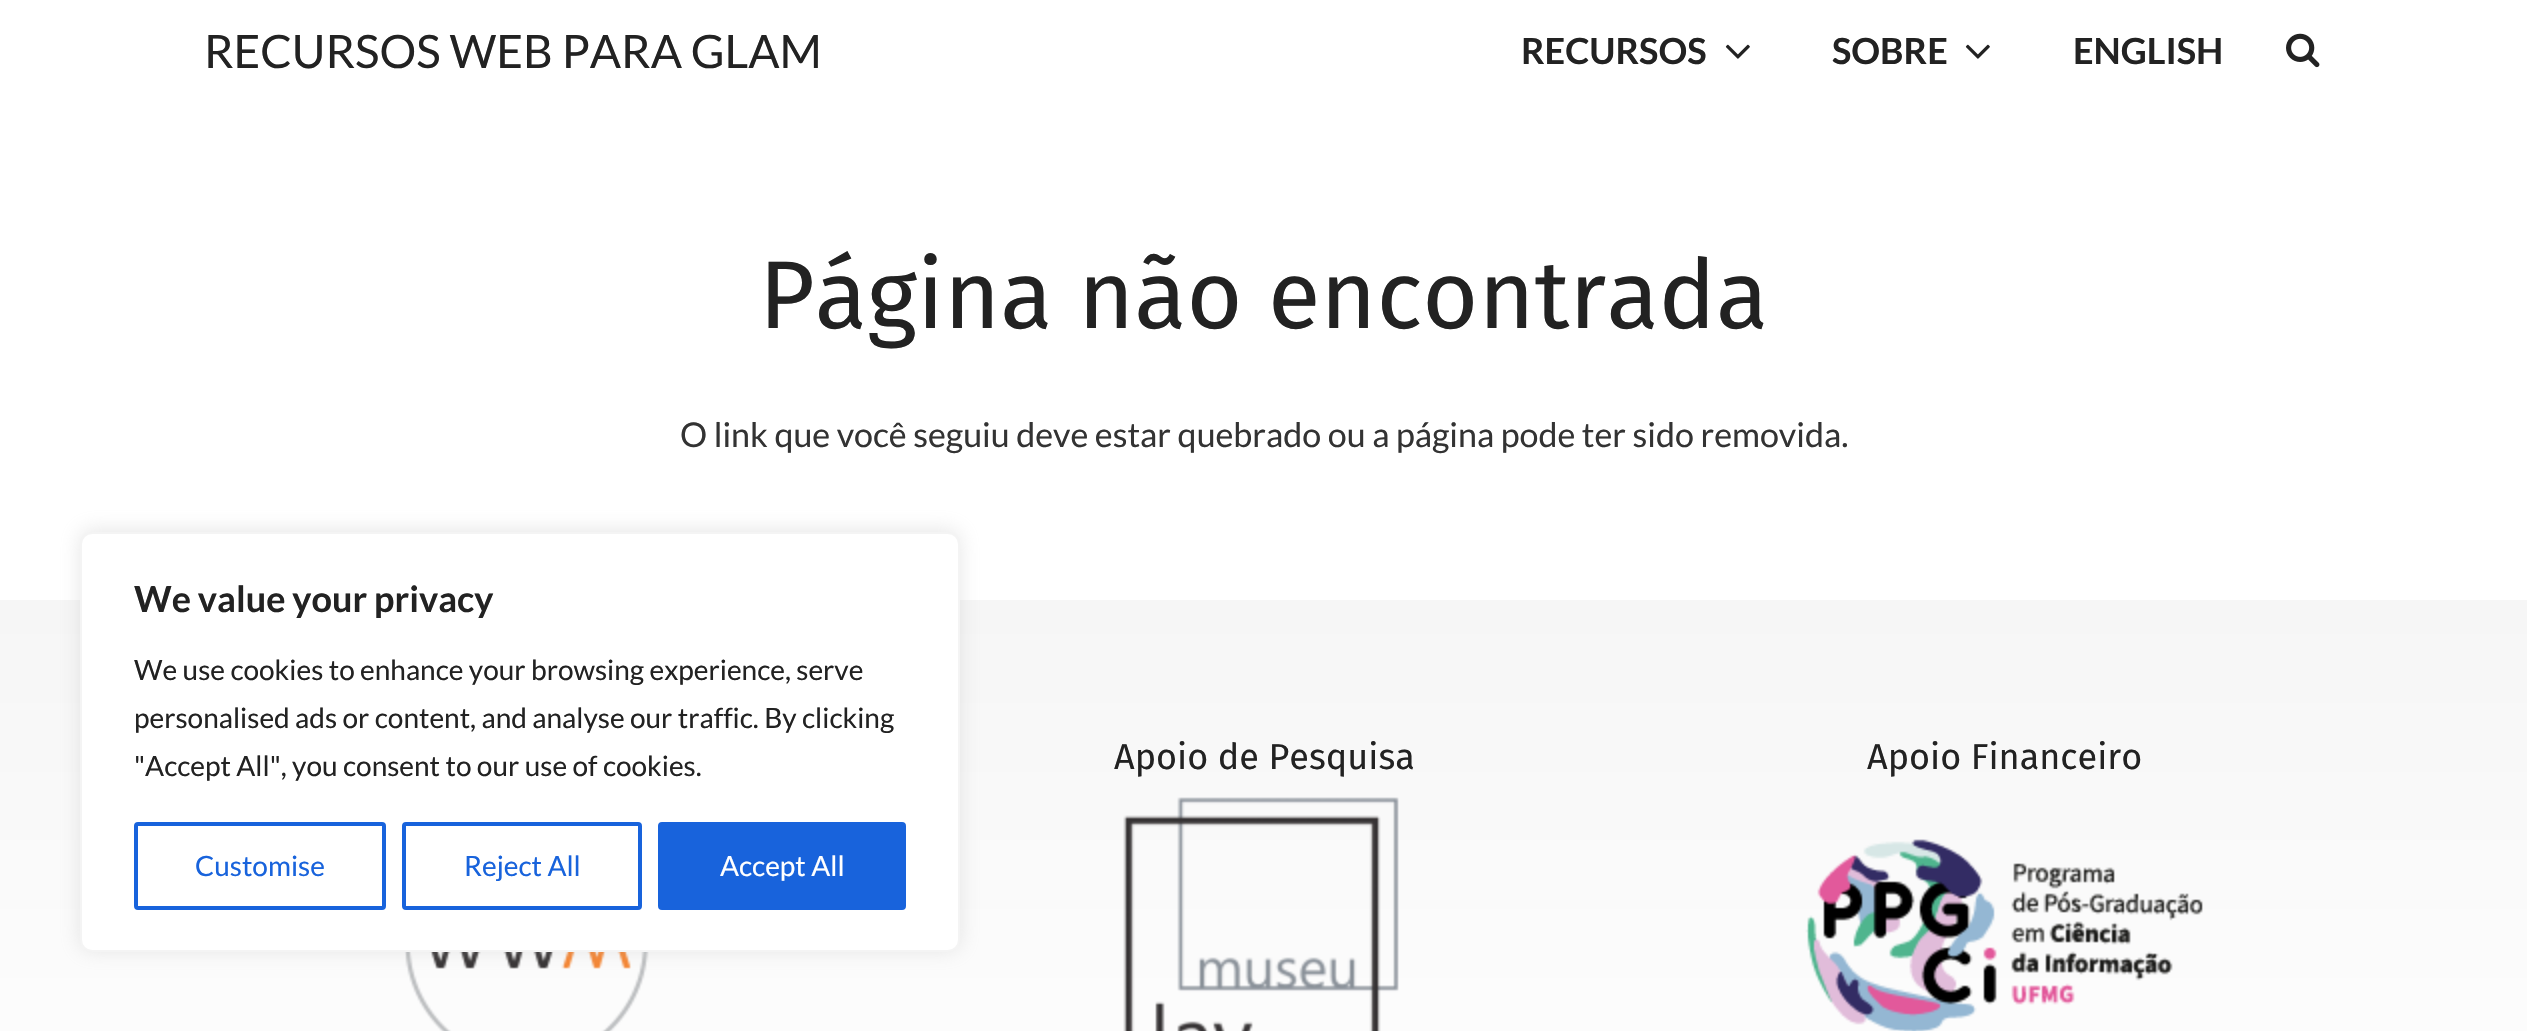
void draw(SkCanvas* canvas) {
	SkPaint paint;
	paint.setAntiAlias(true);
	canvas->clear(0xffffffff);
	SkFont f1(fontMgr->matchFamilyStyle("Lato", SkFontStyle::Normal()), 46);
	f1.setSubpixel(true);
	paint.setColor(0xff222222);
	canvas->drawString("RECURSOS WEB PARA GLAM", 204, 68, f1, paint);
	SkFont f2(fontMgr->matchFamilyStyle("Lato", SkFontStyle::Bold()), 36);
	f2.setSubpixel(true);
	canvas->drawString("RECURSOS", 1521, 64, f2, paint);
	canvas->drawImageRect(SkImages::DeferredFromEncodedData(SkData::MakeFromFileName("img1.png")), SkRect::MakeXYWH(1725, 44, 25, 15), SkSamplingOptions());
	canvas->drawString("SOBRE", 1832, 64, f2, paint);
	canvas->drawImageRect(SkImages::DeferredFromEncodedData(SkData::MakeFromFileName("img1.png")), SkRect::MakeXYWH(1965, 44, 25, 15), SkSamplingOptions());
	canvas->drawString("ENGLISH", 2073, 64, f2, paint);
	canvas->drawImageRect(SkImages::DeferredFromEncodedData(SkData::MakeFromFileName("img2.png")), SkRect::MakeXYWH(2286, 33, 34, 35), SkSamplingOptions());
	SkFont f3(fontMgr->matchFamilyStyle("Fira Sans", SkFontStyle::Normal()), 96);
	f3.setSubpixel(true);
	canvas->drawString("Página não encontrada", 759, 328, f3, paint);
	SkFont f4(fontMgr->matchFamilyStyle("Lato", SkFontStyle::Normal()), 34);
	f4.setSubpixel(true);
	paint.setColor(0xff333333);
	canvas->drawString("O link que você seguiu deve estar quebrado ou a página pode ter sido removida.", 680, 447, f4, paint);
	{
		const SkColor colors[] = {0xfff6f6f6, 0xffffffff};
		const float stops[] = {0, 1};
		const SkPoint ends[] = {{1264, 600}, {1264, 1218}};
		paint.setShader(SkGradientShader::MakeLinear(ends, colors, stops, 2, SkTileMode::kClamp));
		paint.setAlpha(255);
	}
	canvas->drawRect(SkRect::MakeXYWH(0, 600, 2527, 431), paint);
	canvas->drawImageRect(SkImages::DeferredFromEncodedData(SkData::MakeFromFileName("img5.png")), SkRect::MakeXYWH(404, 952, 245, 79), SkSamplingOptions());
	paint.setShader(nullptr);
	paint.setColor(0x4dacabab);
	paint.setMaskFilter(SkMaskFilter::MakeBlur(kNormal_SkBlurStyle, 10));
	canvas->drawRoundRect(SkRect::MakeXYWH(80, 530, 880, 420), 12, 12, paint);
	paint.setMaskFilter(nullptr);
	paint.setColor(0xffffffff);
	canvas->drawRoundRect(SkRect::MakeXYWH(81, 533, 878, 418), 11, 11, paint);
	paint.setStroke(true);
	paint.setStrokeWidth(2);
	paint.setColor(0xfff4f4f4);
	canvas->drawRoundRect(SkRect::MakeXYWH(81, 533, 878, 418), 11, 11, paint);
	paint.setStroke(false);
	paint.setColor(0xff222222);
	canvas->drawString("We value your privacy", 134, 612, f2, paint);
	SkFont f5(fontMgr->matchFamilyStyle("Lato", SkFontStyle::Normal()), 28);
	f5.setSubpixel(true);
	canvas->drawString("We use cookies to enhance your browsing experience, serve", 134, 680, f5, paint);
	canvas->drawString("personalised ads or content, and analyse our traffic. By clicking", 134, 728, f5, paint);
	canvas->drawString("\"Accept All\", you consent to our use of cookies.", 134, 776, f5, paint);
	paint.setStroke(true);
	paint.setStrokeWidth(4);
	paint.setColor(0xff1863dc);
	canvas->drawRoundRect(SkRect::MakeXYWH(136, 824, 248, 84), 2, 2, paint);
	paint.setStroke(false);
	canvas->drawString("Customise", 195, 876, f5, paint);
	paint.setStroke(true);
	canvas->drawRoundRect(SkRect::MakeXYWH(404, 824, 236, 84), 2, 2, paint);
	paint.setStroke(false);
	canvas->drawString("Reject All", 464, 876, f5, paint);
	canvas->drawRoundRect(SkRect::MakeXYWH(660, 824, 244, 84), 2, 2, paint);
	paint.setStroke(true);
	canvas->drawRoundRect(SkRect::MakeXYWH(660, 824, 244, 84), 2, 2, paint);
	paint.setStroke(false);
	paint.setColor(0xffffffff);
	canvas->drawString("Accept All", 720, 876, f5, paint);
	SkFont f6(fontMgr->matchFamilyStyle("Fira Sans", SkFontStyle::Normal()), 36);
	f6.setSubpixel(true);
	paint.setColor(0xff222222);
	canvas->drawString("Apoio de Pesquisa", 1114, 769, f6, paint);
	canvas->drawImageRect(SkImages::DeferredFromEncodedData(SkData::MakeFromFileName("img3.png")), SkRect::MakeXYWH(1123, 797, 276, 234), SkSamplingOptions());
	canvas->drawString("Apoio Financeiro", 1867, 769, f6, paint);
	canvas->drawImageRect(SkImages::DeferredFromEncodedData(SkData::MakeFromFileName("img4.png")), SkRect::MakeXYWH(1805, 839, 398, 192), SkSamplingOptions());
}
